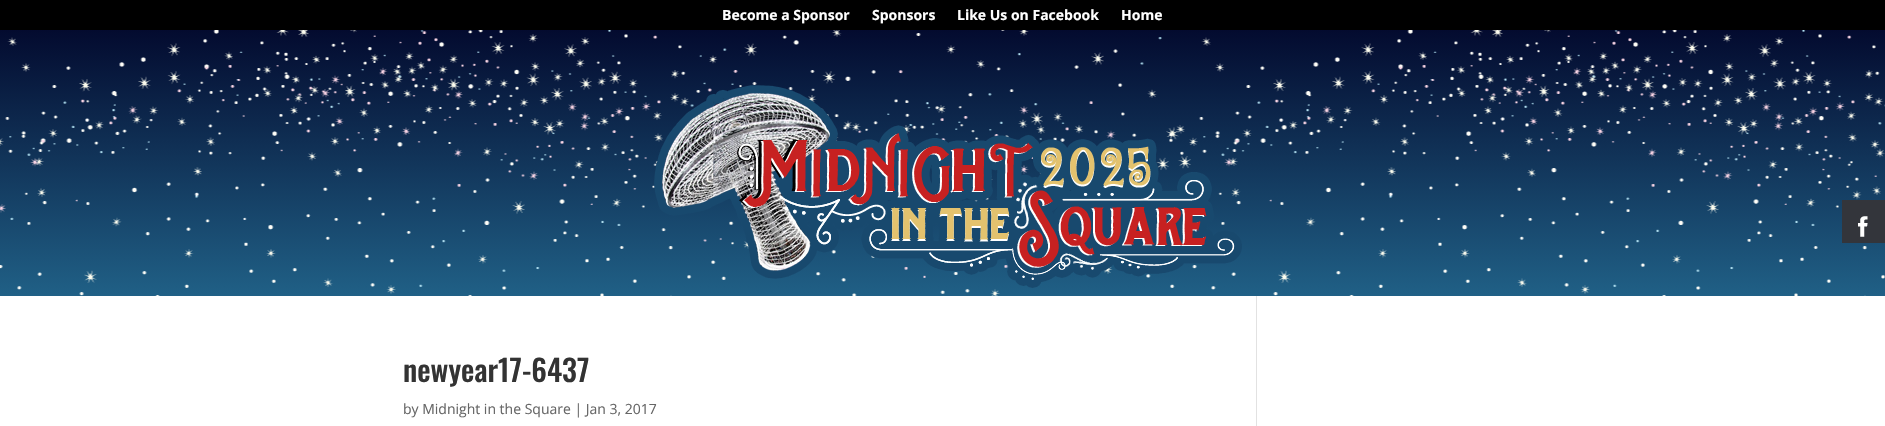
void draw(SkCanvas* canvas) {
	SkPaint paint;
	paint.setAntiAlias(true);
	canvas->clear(0xffffffff);
	canvas->drawImageRect(SkImages::DeferredFromEncodedData(SkData::MakeFromFileName("img1.png")), SkRect::MakeXYWH(0, 30, 1885, 266), SkSamplingOptions());
	paint.setColor(0xff000000);
	canvas->drawRect(SkRect::MakeXYWH(0, 0, 1885, 30), paint);
	SkFont f1(fontMgr->matchFamilyStyle("Open Sans", SkFontStyle::Bold()), 14);
	f1.setSubpixel(true);
	paint.setColor(0xffffffff);
	canvas->drawString("Become a Sponsor", 722, 20, f1, paint);
	canvas->drawString("Sponsors", 872, 20, f1, paint);
	canvas->drawString("Like Us on Facebook", 957, 20, f1, paint);
	canvas->drawString("Home", 1121, 20, f1, paint);
	canvas->drawImageRect(SkImages::DeferredFromEncodedData(SkData::MakeFromFileName("img2.png")), SkRect::MakeXYWH(654, 85, 588, 203), SkSamplingOptions());
	SkFont f2(fontMgr->matchFamilyStyle("Oswald", SkFontStyle(500, SkFontStyle::kNormal_Width, SkFontStyle::kUpright_Slant)), 30);
	f2.setSubpixel(true);
	paint.setColor(0xff333333);
	canvas->drawString("newyear17-6437", 403, 382, f2, paint);
	SkFont f3(fontMgr->matchFamilyStyle("Open Sans", SkFontStyle::Normal()), 14);
	f3.setSubpixel(true);
	paint.setColor(0xff666666);
	canvas->drawString("by Midnight in the Square | Jan 3, 2017", 403, 414, f3, paint);
	paint.setColor(0xffe2e2e2);
	canvas->drawRect(SkRect::MakeXYWH(1256, 296, 1, 130), paint);
	paint.setColor(0xff33353b);
	canvas->drawRect(SkRect::MakeXYWH(1842, 200, 43, 43), paint);
	canvas->drawImageRect(SkImages::DeferredFromEncodedData(SkData::MakeFromFileName("img3.png")), SkRect::MakeXYWH(1858, 216, 10, 21), SkSamplingOptions());
}
